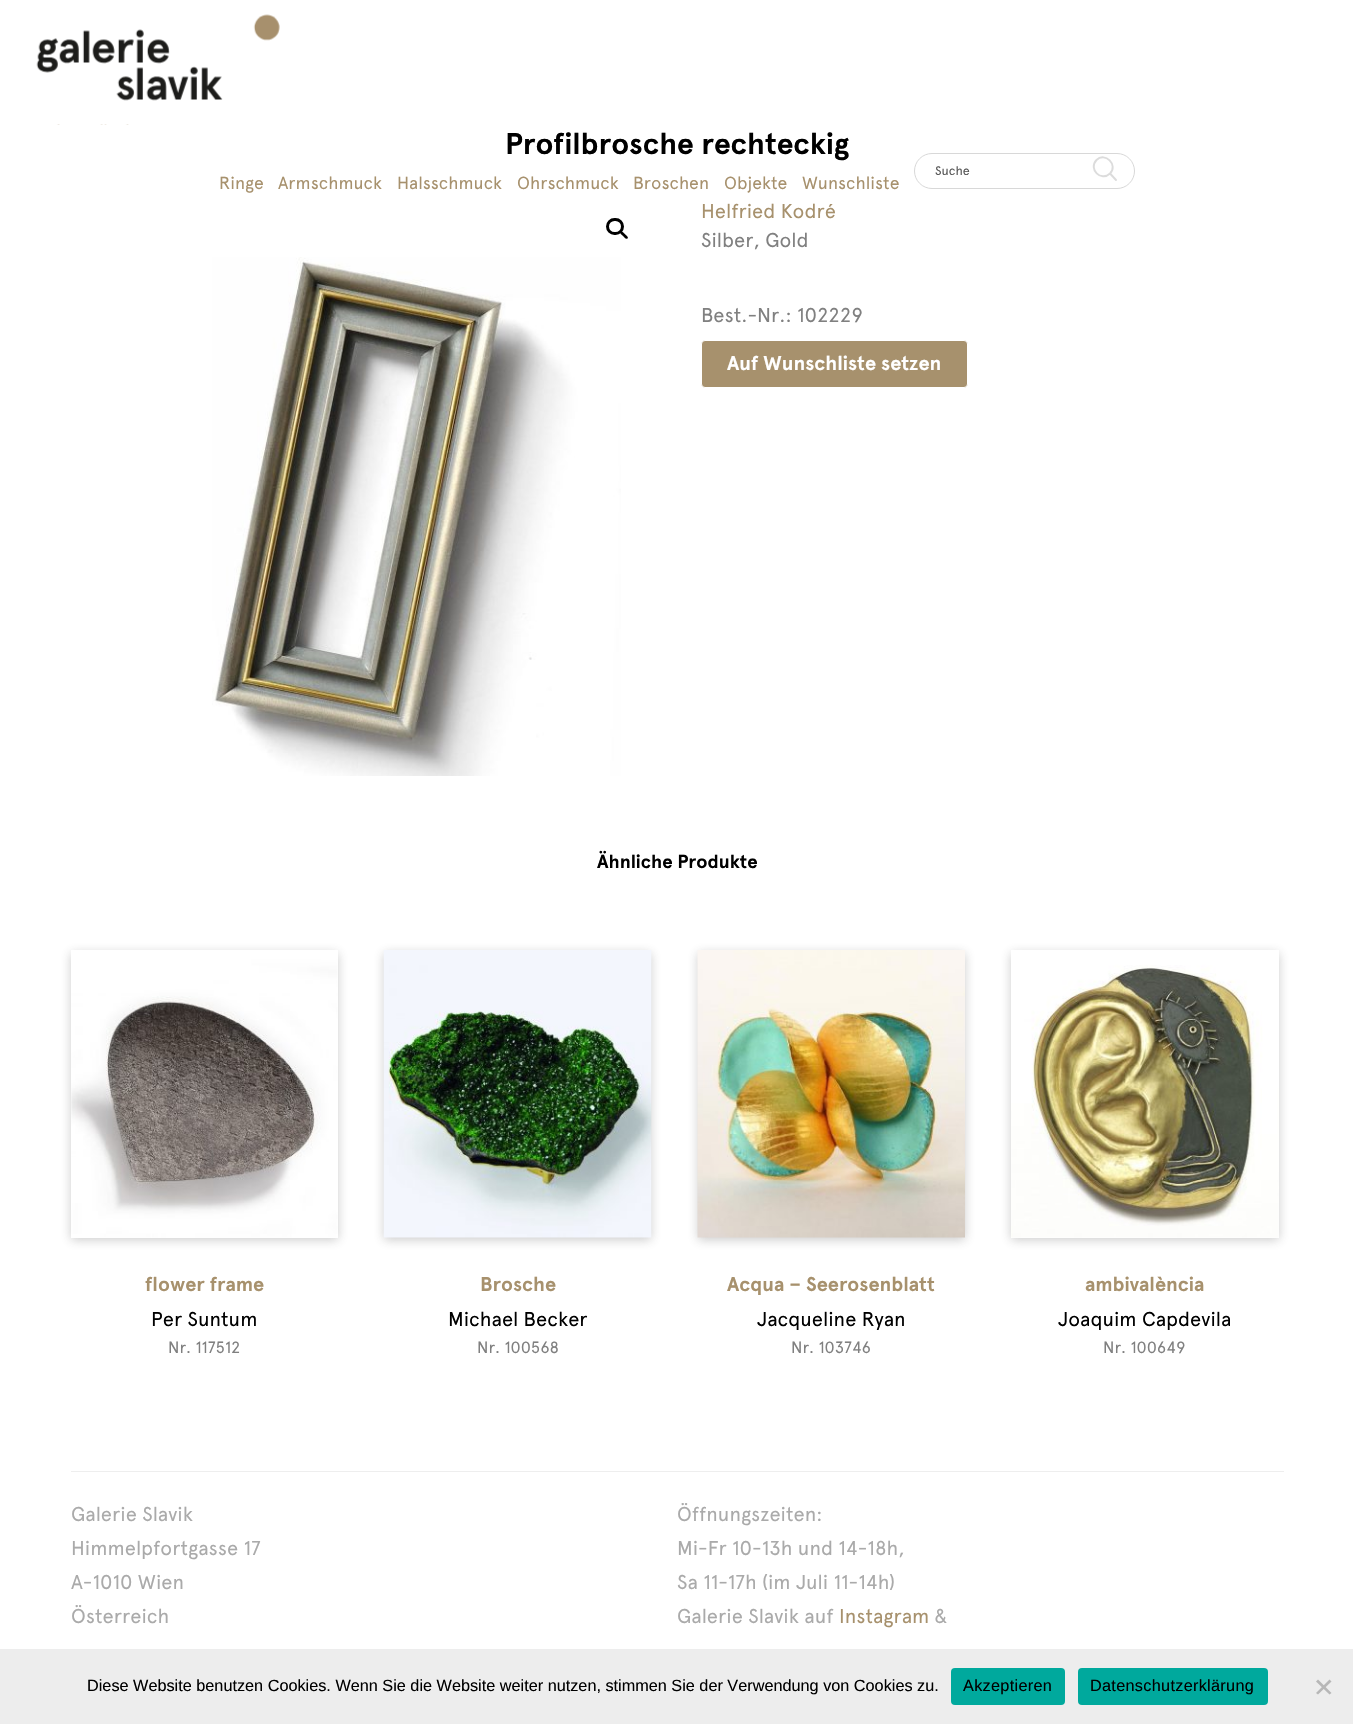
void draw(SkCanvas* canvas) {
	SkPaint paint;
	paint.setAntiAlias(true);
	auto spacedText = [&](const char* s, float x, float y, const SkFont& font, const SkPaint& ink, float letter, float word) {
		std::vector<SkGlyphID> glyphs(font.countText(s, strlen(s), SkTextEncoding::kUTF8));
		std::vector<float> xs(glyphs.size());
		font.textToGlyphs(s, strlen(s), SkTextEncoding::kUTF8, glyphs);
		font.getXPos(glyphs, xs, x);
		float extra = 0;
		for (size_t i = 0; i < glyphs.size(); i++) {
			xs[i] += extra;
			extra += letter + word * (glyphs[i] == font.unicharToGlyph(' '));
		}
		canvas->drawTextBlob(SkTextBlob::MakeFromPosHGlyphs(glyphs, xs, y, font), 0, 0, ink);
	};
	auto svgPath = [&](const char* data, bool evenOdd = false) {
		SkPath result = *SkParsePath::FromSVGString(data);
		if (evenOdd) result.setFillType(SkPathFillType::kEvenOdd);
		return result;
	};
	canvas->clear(0xffffffff);
	canvas->drawImageRect(SkImages::DeferredFromEncodedData(SkData::MakeFromFileName("img1.png")), SkRect::MakeXYWH(36, 14, 244, 111), SkSamplingOptions());
	SkFont f1(fontMgr->matchFamilyStyle("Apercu", SkFontStyle::Bold()), 30);
	f1.setSubpixel(true);
	paint.setColor(0xff000000);
	canvas->drawString("Profilbrosche rechteckig", 505, 154, f1, paint);
	paint.setStroke(true);
	paint.setStrokeWidth(3);
	canvas->drawRoundRect(SkRect::MakeXYWH(607.5, 219.5, 15, 14), 7, 7, paint);
	paint.setStroke(false);
	canvas->drawPath(svgPath("M620.5 231.5C622 230 624 233.5 625 234C625.5 235 629 237 627.5 238.5C626 240 623.5 236.5 623 236C622 235 619 233 620.5 231.5Z"), paint);
	canvas->drawImageRect(SkImages::DeferredFromEncodedData(SkData::MakeFromFileName("img2.png")), SkRect::MakeXYWH(212, 257, 409, 519), SkSamplingOptions());
	SkFont f2(fontMgr->matchFamilyStyle("Apercu", SkFontStyle::Normal()), 20);
	f2.setSubpixel(true);
	paint.setColor(0xffa7916d);
	canvas->drawString("Helfried Kodré", 701, 218, f2, paint);
	paint.setColor(0xff808080);
	canvas->drawString("Silber, Gold", 701, 247, f2, paint);
	canvas->drawString("Best.-Nr.: 102229", 701, 322, f2, paint);
	paint.setColor(0xffa7916d);
	canvas->drawRoundRect(SkRect::MakeXYWH(701.5, 340.5, 266, 47), 3.5, 3.5, paint);
	paint.setStroke(true);
	paint.setStrokeWidth(1);
	paint.setColor(0xffffffff);
	canvas->drawRoundRect(SkRect::MakeXYWH(701.5, 340.5, 266, 47), 3.5, 3.5, paint);
	SkFont f3(fontMgr->matchFamilyStyle("Apercu", SkFontStyle::Bold()), 20);
	f3.setSubpixel(true);
	paint.setStroke(false);
	canvas->drawString("Auf Wunschliste setzen", 727, 370, f3, paint);
	SkFont f4(fontMgr->matchFamilyStyle("Apercu", SkFontStyle::Bold()), 18.75);
	f4.setSubpixel(true);
	paint.setColor(0xff000000);
	canvas->drawString("Ähnliche Produkte", 597, 868, f4, paint);
	canvas->save();
	canvas->clipPath(svgPath("M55 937H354V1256H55ZM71 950H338V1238H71Z", true), true);
	paint.setColor(0x40323232);
	paint.setMaskFilter(SkMaskFilter::MakeBlur(kNormal_SkBlurStyle, 5));
	canvas->drawRect(SkRect::MakeXYWH(71, 953, 267, 287), paint);
	paint.setMaskFilter(nullptr);
	canvas->restore();
	canvas->drawImageRect(SkImages::DeferredFromEncodedData(SkData::MakeFromFileName("img3.png")), SkRect::MakeXYWH(71, 954, 267, 284), SkSamplingOptions());
	paint.setColor(0xffa7916d);
	canvas->drawString("flower frame", 145, 1291, f3, paint);
	paint.setColor(0xff000000);
	canvas->drawString("Per Suntum", 151, 1326, f2, paint);
	SkFont f5(fontMgr->matchFamilyStyle("Apercu", SkFontStyle::Normal()), 16.25);
	f5.setSubpixel(true);
	paint.setColor(0xff808080);
	canvas->drawString("Nr. 117512", 168, 1353, f5, paint);
	paint.setColor(0x40323232);
	paint.setMaskFilter(SkMaskFilter::MakeBlur(kNormal_SkBlurStyle, 5));
	canvas->drawRect(SkRect::MakeXYWH(384, 953, 267, 287), paint);
	paint.setMaskFilter(nullptr);
	canvas->drawImageRect(SkImages::DeferredFromEncodedData(SkData::MakeFromFileName("img4.png")), SkRect::MakeXYWH(383, 950, 269, 288), SkSamplingOptions());
	paint.setColor(0xffa7916d);
	canvas->drawString("Brosche", 480, 1291, f3, paint);
	paint.setColor(0xff000000);
	canvas->drawString("Michael Becker", 448, 1326, f2, paint);
	paint.setColor(0xff808080);
	canvas->drawString("Nr. 100568", 477, 1353, f5, paint);
	paint.setColor(0x40323232);
	paint.setMaskFilter(SkMaskFilter::MakeBlur(kNormal_SkBlurStyle, 5));
	canvas->drawRect(SkRect::MakeXYWH(698, 953, 267, 287), paint);
	paint.setMaskFilter(nullptr);
	canvas->drawImageRect(SkImages::DeferredFromEncodedData(SkData::MakeFromFileName("img5.png")), SkRect::MakeXYWH(697, 950, 268, 288), SkSamplingOptions());
	paint.setColor(0xffa7916d);
	canvas->drawString("Acqua – Seerosenblatt", 727, 1291, f3, paint);
	paint.setColor(0xff000000);
	canvas->drawString("Jacqueline Ryan", 757, 1326, f2, paint);
	paint.setColor(0xff808080);
	canvas->drawString("Nr. 103746", 791, 1353, f5, paint);
	canvas->save();
	canvas->clipPath(svgPath("M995 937H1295V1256H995ZM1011 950H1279V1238H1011Z", true), true);
	paint.setColor(0x40323232);
	paint.setMaskFilter(SkMaskFilter::MakeBlur(kNormal_SkBlurStyle, 5));
	canvas->drawRect(SkRect::MakeXYWH(1011, 953, 268, 287), paint);
	paint.setMaskFilter(nullptr);
	canvas->restore();
	canvas->drawImageRect(SkImages::DeferredFromEncodedData(SkData::MakeFromFileName("img6.png")), SkRect::MakeXYWH(1011, 957, 268, 281), SkSamplingOptions());
	paint.setColor(0xffa7916d);
	canvas->drawString("ambivalència", 1085, 1291, f3, paint);
	paint.setColor(0xff000000);
	canvas->drawString("Joaquim Capdevila", 1058, 1326, f2, paint);
	paint.setColor(0xff808080);
	canvas->drawString("Nr. 100649", 1103, 1353, f5, paint);
	paint.setStroke(true);
	paint.setColor(0xffd8d8d8);
	canvas->drawRoundRect(SkRect::MakeXYWH(914.5, 153.5, 220, 35), 17.5, 17.5, paint);
	SkFont f6(fontMgr->matchFamilyStyle("Apercu", SkFontStyle::Normal()), 12.5);
	f6.setSubpixel(true);
	paint.setStroke(false);
	paint.setColor(0xff575757);
	canvas->drawString("Suche", 935, 175, f6, paint);
	paint.setStroke(true);
	paint.setStrokeWidth(1.9);
	paint.setStrokeCap(SkPaint::kRound_Cap);
	paint.setStrokeJoin(SkPaint::kRound_Join);
	paint.setColor(0xffdcdcdc);
	canvas->drawPath(svgPath("M1116 180L1110 173.5M1110 173.5C1118.5 165 1105 151.5 1096.5 160C1088 169 1101 182 1110 173.5Z"), paint);
	SkFont f7(fontMgr->matchFamilyStyle("Apercu", SkFontStyle::Normal()), 17.5);
	f7.setSubpixel(true);
	paint.setStroke(false);
	paint.setColor(0xffa7916d);
	canvas->drawString("Ringe", 219, 189, f7, paint);
	canvas->drawString("Armschmuck", 278, 189, f7, paint);
	canvas->drawString("Halsschmuck", 397, 189, f7, paint);
	canvas->drawString("Ohrschmuck", 517, 189, f7, paint);
	canvas->drawString("Broschen", 633, 189, f7, paint);
	canvas->drawString("Objekte", 724, 189, f7, paint);
	canvas->drawString("Wunschliste", 802, 189, f7, paint);
	paint.setColor(0xffeeeeee);
	canvas->drawRect(SkRect::MakeXYWH(71, 1471, 1213, 1), paint);
	paint.setColor(0xffaaaaaa);
	canvas->drawString("Galerie Slavik", 71, 1521, f2, paint);
	canvas->drawString("Himmelpfortgasse 17", 71, 1555, f2, paint);
	canvas->drawString("A-1010 Wien", 71, 1589, f2, paint);
	canvas->drawString("Österreich", 71, 1623, f2, paint);
	canvas->drawString("Öffnungszeiten:", 677, 1521, f2, paint);
	canvas->drawString("Mi-Fr 10-13h und 14-18h,", 677, 1555, f2, paint);
	canvas->drawString("Sa 11-17h (im Juli 11-14h)", 677, 1589, f2, paint);
	canvas->drawString("Galerie Slavik auf", 677, 1623, f2, paint);
	paint.setColor(0xffa7916d);
	canvas->drawString("Instagram", 839, 1623, f2, paint);
	paint.setColor(0xffaaaaaa);
	canvas->drawString("&", 934, 1623, f2, paint);
	paint.setColor(0xffededed);
	canvas->drawRect(SkRect::MakeXYWH(0, 1649, 1353, 75), paint);
	SkFont f8(fontMgr->matchFamilyStyle("Liberation Sans", SkFontStyle::Normal()), 16.25);
	f8.setSubpixel(true);
	paint.setColor(0xff000000);
	canvas->drawString("Diese Website benutzen Cookies. Wenn Sie die Website weiter nutzen, stimmen Sie der Verwendung von Cookies zu.", 87, 1691, f8, paint);
	paint.setColor(0xff00a99d);
	canvas->drawRoundRect(SkRect::MakeXYWH(951, 1668, 114, 37), 4, 4, paint);
	paint.setColor(0xff000000);
	spacedText("Akzeptieren", 963, 1691, f8, paint, 0.3, 0);
	paint.setColor(0xff00a99d);
	canvas->drawRoundRect(SkRect::MakeXYWH(1078, 1668, 190, 37), 4, 4, paint);
	paint.setColor(0xff000000);
	spacedText("Datenschutzerklärung", 1090, 1691, f8, paint, 0.3, 0);
	paint.setColor(0xffb7b7b7);
	canvas->drawPath(svgPath("M1329.5 1679.5L1331.5 1681.5L1318 1694.5L1316 1693Z"), paint);
	canvas->drawPath(svgPath("M1316 1681.5L1318 1679.5L1331.5 1693L1329.5 1694.5Z"), paint);
}
